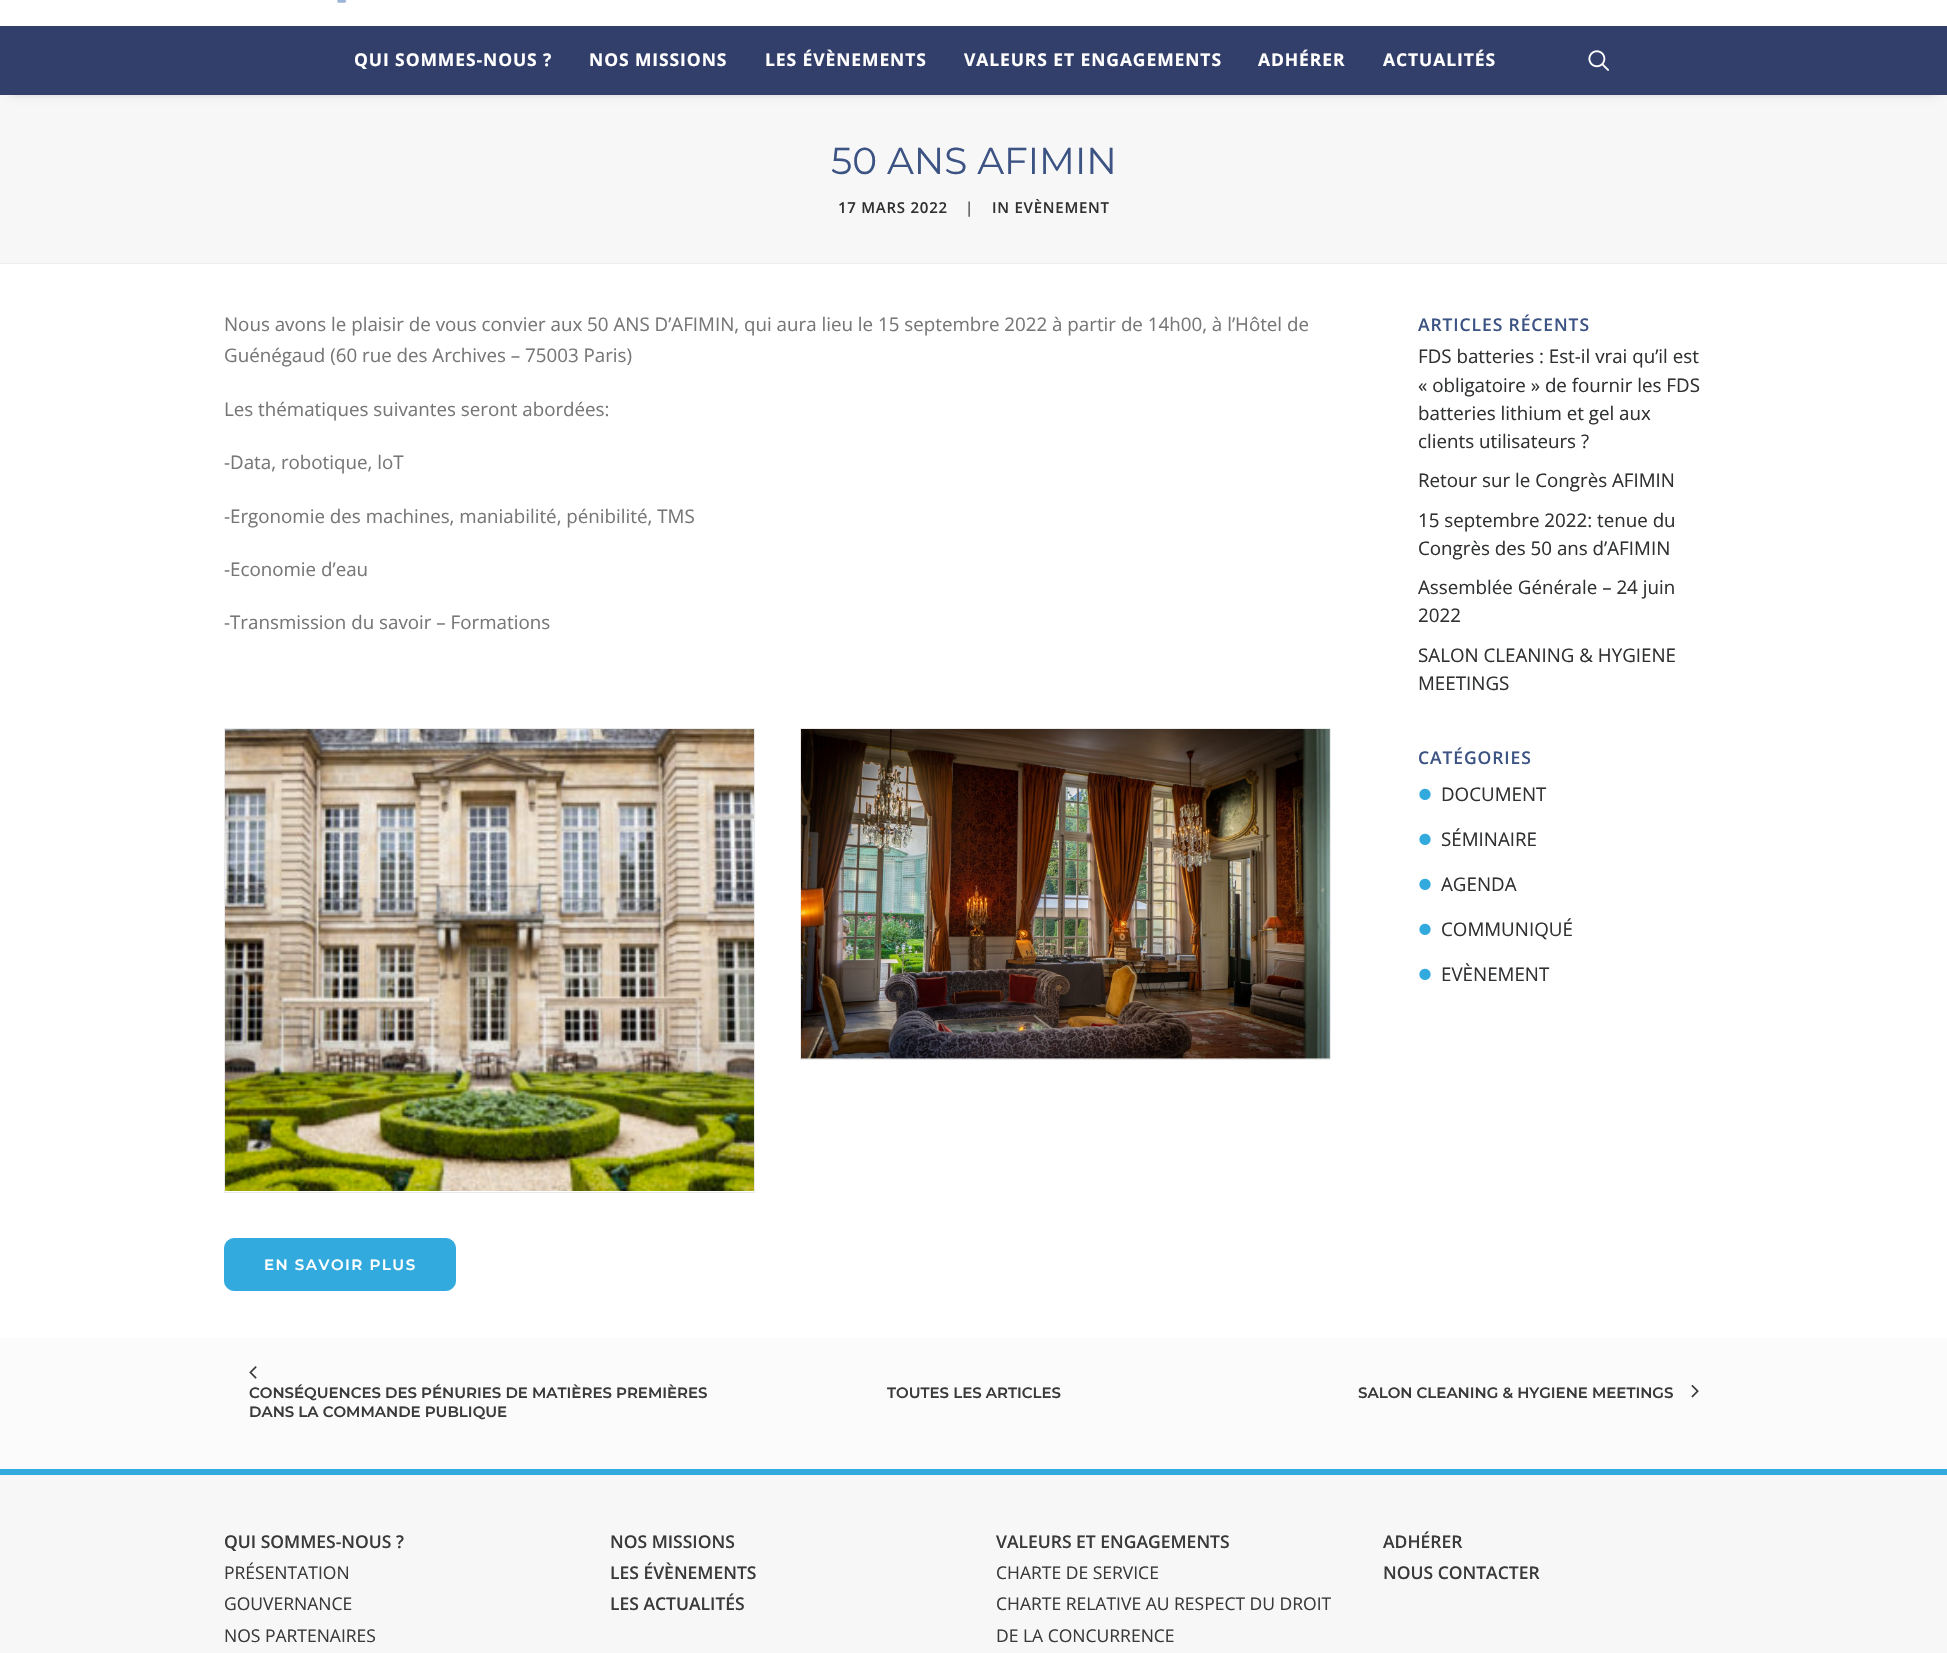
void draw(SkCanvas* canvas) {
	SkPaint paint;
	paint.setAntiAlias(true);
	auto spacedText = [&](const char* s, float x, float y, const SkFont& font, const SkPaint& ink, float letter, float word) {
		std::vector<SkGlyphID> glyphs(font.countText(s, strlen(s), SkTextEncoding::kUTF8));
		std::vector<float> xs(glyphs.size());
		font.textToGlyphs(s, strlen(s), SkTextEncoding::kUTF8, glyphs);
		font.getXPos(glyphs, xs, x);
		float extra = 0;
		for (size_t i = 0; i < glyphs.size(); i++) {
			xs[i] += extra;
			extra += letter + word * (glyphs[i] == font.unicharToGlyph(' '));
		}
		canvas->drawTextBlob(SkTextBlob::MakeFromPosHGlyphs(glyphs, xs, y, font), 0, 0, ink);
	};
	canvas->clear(0xfff7f7f7);
	paint.setColor(0x99000000);
	paint.setMaskFilter(SkMaskFilter::MakeBlur(kNormal_SkBlurStyle, 6));
	canvas->drawRect(SkRect::MakeXYWH(11, 44, 1925, 44), paint);
	paint.setMaskFilter(nullptr);
	paint.setColor(0xffffffff);
	canvas->drawRect(SkRect::MakeXYWH(0, 0, 1947, 26), paint);
	canvas->drawImageRect(SkImages::DeferredFromEncodedData(SkData::MakeFromFileName("img1.png")), SkRect::MakeXYWH(337, 0, 10, 3), SkSamplingOptions());
	paint.setColor(0xff333f6b);
	canvas->drawRect(SkRect::MakeXYWH(0, 26, 1947, 69), paint);
	SkFont f1(fontMgr->matchFamilyStyle("Open Sans", SkFontStyle::Bold()), 17.5);
	f1.setSubpixel(true);
	paint.setColor(0xffffffff);
	spacedText("QUI SOMMES-NOUS ?", 354, 66, f1, paint, 0.9, 0);
	spacedText("NOS MISSIONS", 589, 66, f1, paint, 0.9, 0);
	spacedText("LES ÉVÈNEMENTS", 765, 66, f1, paint, 0.9, 0);
	spacedText("VALEURS ET ENGAGEMENTS", 964, 66, f1, paint, 0.9, 0);
	spacedText("ADHÉRER", 1258, 66, f1, paint, 0.9, 0);
	spacedText("ACTUALITÉS", 1383, 66, f1, paint, 0.9, 0);
	canvas->drawImageRect(SkImages::DeferredFromEncodedData(SkData::MakeFromFileName("img2.png")), SkRect::MakeXYWH(1588, 50, 21, 21), SkSamplingOptions());
	paint.setColor(0xffeeeeee);
	canvas->drawRect(SkRect::MakeXYWH(0, 263, 1947, 1), paint);
	SkFont f2(fontMgr->matchFamilyStyle("Montserrat", SkFontStyle::Normal()), 37.5);
	f2.setSubpixel(true);
	paint.setColor(0xff3c5383);
	canvas->drawString("50 ANS AFIMIN", 831, 174, f2, paint);
	SkFont f3(fontMgr->matchFamilyStyle("Open Sans", SkFontStyle(600, SkFontStyle::kNormal_Width, SkFontStyle::kUpright_Slant)), 15);
	f3.setSubpixel(true);
	paint.setColor(0xff303133);
	spacedText("17 MARS 2022", 838, 213, f3, paint, 0.75, 0);
	SkFont f4(fontMgr->matchFamilyStyle("Open Sans", SkFontStyle::Normal()), 15);
	f4.setSubpixel(true);
	spacedText("|", 965, 213, f4, paint, 0.75, 0);
	spacedText("IN EVÈNEMENT", 992, 213, f3, paint, 0.75, 0);
	paint.setColor(0xffffffff);
	canvas->drawRect(SkRect::MakeXYWH(0, 264, 1947, 1074), paint);
	SkFont f5(fontMgr->matchFamilyStyle("Open Sans", SkFontStyle::Normal()), 18.75);
	f5.setSubpixel(true);
	paint.setColor(0xff777777);
	canvas->drawString("Nous avons le plaisir de vous convier aux 50 ANS D’AFIMIN, qui aura lieu le 15 septembre 2022 à partir de 14h00, à l’Hôtel de", 224, 331, f5, paint);
	canvas->drawString("Guénégaud (60 rue des Archives – 75003 Paris)", 224, 362, f5, paint);
	canvas->drawString("Les thématiques suivantes seront abordées:", 224, 416, f5, paint);
	canvas->drawString("-Data, robotique, loT", 224, 469, f5, paint);
	canvas->drawString("-Ergonomie des machines, maniabilité, pénibilité, TMS", 224, 523, f5, paint);
	canvas->drawString("-Economie d’eau", 224, 576, f5, paint);
	canvas->drawString("-Transmission du savoir – Formations", 224, 629, f5, paint);
	paint.setStroke(true);
	paint.setStrokeWidth(1);
	paint.setColor(0xffeaeaea);
	canvas->drawRect(SkRect::MakeXYWH(224.5, 728.5, 530, 464), paint);
	canvas->drawImageRect(SkImages::DeferredFromEncodedData(SkData::MakeFromFileName("img3.png")), SkRect::MakeXYWH(225, 729, 529, 462), SkSamplingOptions());
	canvas->drawRect(SkRect::MakeXYWH(800.5, 728.5, 530, 331), paint);
	canvas->drawImageRect(SkImages::DeferredFromEncodedData(SkData::MakeFromFileName("img4.png")), SkRect::MakeXYWH(801, 729, 529, 330), SkSamplingOptions());
	paint.setStroke(false);
	paint.setColor(0xff32aade);
	canvas->drawRoundRect(SkRect::MakeXYWH(224.5, 1238.5, 231, 52), 9.5, 9.5, paint);
	paint.setStroke(true);
	canvas->drawRoundRect(SkRect::MakeXYWH(224.5, 1238.5, 231, 52), 9.5, 9.5, paint);
	SkFont f6(fontMgr->matchFamilyStyle("Montserrat", SkFontStyle(600, SkFontStyle::kNormal_Width, SkFontStyle::kUpright_Slant)), 15);
	f6.setSubpixel(true);
	paint.setStroke(false);
	paint.setColor(0xffffffff);
	spacedText("EN SAVOIR PLUS", 264, 1270, f6, paint, 1.5, 0);
	SkFont f7(fontMgr->matchFamilyStyle("Open Sans", SkFontStyle(600, SkFontStyle::kNormal_Width, SkFontStyle::kUpright_Slant)), 17.5);
	f7.setSubpixel(true);
	paint.setColor(0xff3c5383);
	spacedText("ARTICLES RÉCENTS", 1418, 331, f7, paint, 0.9, 0);
	paint.setColor(0xff303133);
	canvas->drawString("FDS batteries : Est-il vrai qu’il est", 1418, 363, f5, paint);
	canvas->drawString("« obligatoire » de fournir les FDS", 1418, 392, f5, paint);
	canvas->drawString("batteries lithium et gel aux", 1418, 420, f5, paint);
	canvas->drawString("clients utilisateurs ?", 1418, 448, f5, paint);
	canvas->drawString("Retour sur le Congrès AFIMIN", 1418, 487, f5, paint);
	canvas->drawString("15 septembre 2022: tenue du", 1418, 527, f5, paint);
	canvas->drawString("Congrès des 50 ans d’AFIMIN", 1418, 555, f5, paint);
	canvas->drawString("Assemblée Générale – 24 juin", 1418, 594, f5, paint);
	canvas->drawString("2022", 1418, 622, f5, paint);
	canvas->drawString("SALON CLEANING & HYGIENE", 1418, 662, f5, paint);
	canvas->drawString("MEETINGS", 1418, 690, f5, paint);
	paint.setColor(0xff3c5383);
	spacedText("CATÉGORIES", 1418, 764, f7, paint, 0.9, 0);
	canvas->drawImageRect(SkImages::DeferredFromEncodedData(SkData::MakeFromFileName("img5.png")), SkRect::MakeXYWH(1419, 788, 12, 12), SkSamplingOptions());
	paint.setColor(0xff303133);
	canvas->drawString("DOCUMENT", 1441, 801, f5, paint);
	canvas->drawImageRect(SkImages::DeferredFromEncodedData(SkData::MakeFromFileName("img5.png")), SkRect::MakeXYWH(1419, 833, 12, 12), SkSamplingOptions());
	canvas->drawString("SÉMINAIRE", 1441, 846, f5, paint);
	canvas->drawImageRect(SkImages::DeferredFromEncodedData(SkData::MakeFromFileName("img5.png")), SkRect::MakeXYWH(1419, 878, 12, 12), SkSamplingOptions());
	canvas->drawString("AGENDA", 1441, 891, f5, paint);
	canvas->drawImageRect(SkImages::DeferredFromEncodedData(SkData::MakeFromFileName("img5.png")), SkRect::MakeXYWH(1419, 923, 12, 12), SkSamplingOptions());
	canvas->drawString("COMMUNIQUÉ", 1441, 936, f5, paint);
	canvas->drawImageRect(SkImages::DeferredFromEncodedData(SkData::MakeFromFileName("img5.png")), SkRect::MakeXYWH(1419, 968, 12, 12), SkSamplingOptions());
	canvas->drawString("EVÈNEMENT", 1441, 981, f5, paint);
	paint.setColor(0xfffbfbfb);
	canvas->drawRect(SkRect::MakeXYWH(0, 1338, 1947, 131), paint);
	canvas->drawImageRect(SkImages::DeferredFromEncodedData(SkData::MakeFromFileName("img6.png")), SkRect::MakeXYWH(249, 1366, 8, 13), SkSamplingOptions());
	paint.setColor(0xff3a3a3a);
	canvas->drawString("CONSÉQUENCES DES PÉNURIES DE MATIÈRES PREMIÈRES", 249, 1398, f6, paint);
	canvas->drawString("DANS LA COMMANDE PUBLIQUE", 249, 1417, f6, paint);
	canvas->drawString("TOUTES LES ARTICLES", 887, 1398, f6, paint);
	canvas->drawString("SALON CLEANING & HYGIENE MEETINGS", 1358, 1398, f6, paint);
	canvas->drawImageRect(SkImages::DeferredFromEncodedData(SkData::MakeFromFileName("img7.png")), SkRect::MakeXYWH(1691, 1384, 8, 14), SkSamplingOptions());
	paint.setColor(0xff32aade);
	canvas->drawRect(SkRect::MakeXYWH(0, 1469, 1947, 6), paint);
	paint.setColor(0xff3a3a3a);
	canvas->drawString("QUI SOMMES-NOUS ?", 224, 1548, f7, paint);
	SkFont f8(fontMgr->matchFamilyStyle("Open Sans", SkFontStyle::Normal()), 17.5);
	f8.setSubpixel(true);
	canvas->drawString("PRÉSENTATION", 224, 1579, f8, paint);
	canvas->drawString("GOUVERNANCE", 224, 1610, f8, paint);
	canvas->drawString("NOS PARTENAIRES", 224, 1642, f8, paint);
	canvas->drawString("NOS MISSIONS", 610, 1548, f7, paint);
	canvas->drawString("LES ÉVÈNEMENTS", 610, 1579, f7, paint);
	canvas->drawString("LES ACTUALITÉS", 610, 1610, f7, paint);
	canvas->drawString("VALEURS ET ENGAGEMENTS", 996, 1548, f7, paint);
	canvas->drawString("CHARTE DE SERVICE", 996, 1579, f8, paint);
	canvas->drawString("CHARTE RELATIVE AU RESPECT DU DROIT", 996, 1610, f8, paint);
	canvas->drawString("DE LA CONCURRENCE", 996, 1642, f8, paint);
	canvas->drawString("ADHÉRER", 1383, 1548, f7, paint);
	canvas->drawString("NOUS CONTACTER", 1383, 1579, f7, paint);
}
